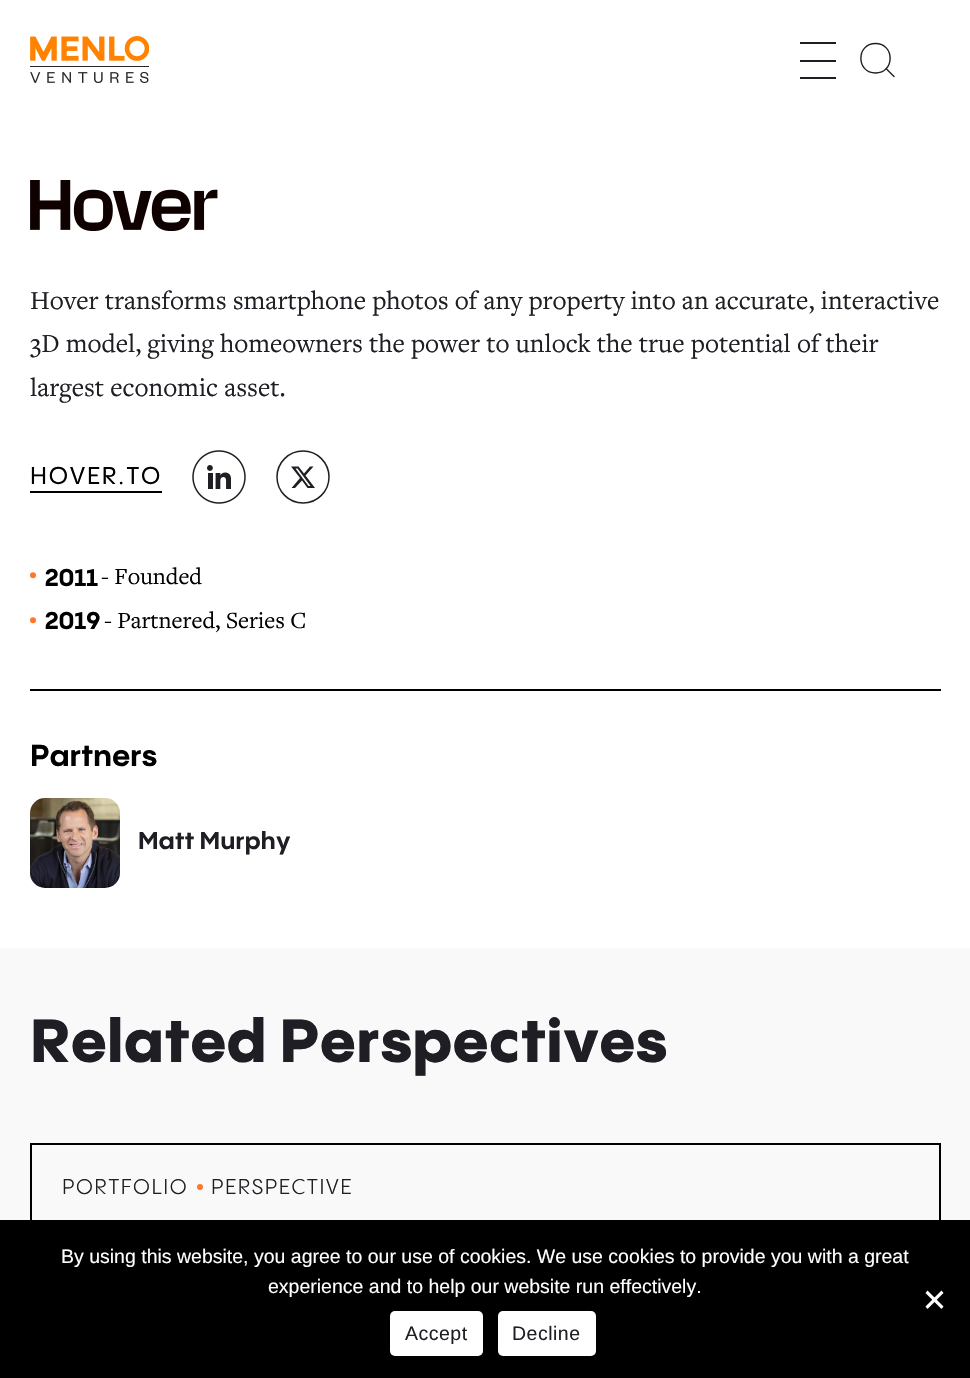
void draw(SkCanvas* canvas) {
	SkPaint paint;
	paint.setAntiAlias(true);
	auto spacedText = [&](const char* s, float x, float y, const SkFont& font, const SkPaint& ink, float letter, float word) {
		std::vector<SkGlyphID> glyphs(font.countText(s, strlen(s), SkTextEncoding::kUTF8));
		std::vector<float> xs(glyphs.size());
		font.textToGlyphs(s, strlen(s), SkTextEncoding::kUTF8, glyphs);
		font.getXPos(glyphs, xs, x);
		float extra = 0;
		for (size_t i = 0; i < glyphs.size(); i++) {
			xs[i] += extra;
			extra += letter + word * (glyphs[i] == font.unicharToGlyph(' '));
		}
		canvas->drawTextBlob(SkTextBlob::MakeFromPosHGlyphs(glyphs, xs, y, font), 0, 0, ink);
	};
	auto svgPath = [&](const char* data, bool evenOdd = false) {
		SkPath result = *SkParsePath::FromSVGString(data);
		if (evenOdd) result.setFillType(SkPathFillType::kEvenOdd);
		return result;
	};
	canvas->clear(0xffffffff);
	canvas->drawImageRect(SkImages::DeferredFromEncodedData(SkData::MakeFromFileName("img1.png")), SkRect::MakeXYWH(30, 36, 119, 47), SkSamplingOptions());
	paint.setColor(0xff1e1e24);
	canvas->drawRect(SkRect::MakeXYWH(800, 42, 36, 2), paint);
	canvas->drawRect(SkRect::MakeXYWH(800, 60, 36, 2), paint);
	canvas->drawRect(SkRect::MakeXYWH(800, 77, 36, 2), paint);
	paint.setStroke(true);
	paint.setStrokeWidth(1.4);
	paint.setStrokeCap(SkPaint::kRound_Cap);
	paint.setStrokeJoin(SkPaint::kRound_Join);
	canvas->drawPath(svgPath("M875.5 73C895 73 895 43.5 875.5 43.5C856 43.5 856 73 875.5 73ZM894 76.5L886 68.5"), paint);
	canvas->drawImageRect(SkImages::DeferredFromEncodedData(SkData::MakeFromFileName("img2.png")), SkRect::MakeXYWH(30, 180, 188, 51), SkSamplingOptions());
	SkFont f1(fontMgr->matchFamilyStyle("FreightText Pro", SkFontStyle::Normal()), 27);
	f1.setSubpixel(true);
	paint.setStroke(false);
	canvas->drawString("Hover transforms smartphone photos of any property into an accurate, interactive", 30, 309, f1, paint);
	canvas->drawString("3D model, giving homeowners the power to unlock the true potential of their", 30, 352, f1, paint);
	canvas->drawString("largest economic asset.", 30, 396, f1, paint);
	SkFont f2(fontMgr->matchFamilyStyle("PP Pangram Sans", SkFontStyle(500, SkFontStyle::kNormal_Width, SkFontStyle::kUpright_Slant)), 24);
	f2.setSubpixel(true);
	paint.setColor(0xff000000);
	spacedText("HOVER.TO", 30, 484, f2, paint, 1.75, 0);
	canvas->drawRect(SkRect::MakeXYWH(30, 491, 132, 2), paint);
	canvas->drawImageRect(SkImages::DeferredFromEncodedData(SkData::MakeFromFileName("img3.png")), SkRect::MakeXYWH(192, 450, 54, 54), SkSamplingOptions());
	paint.setStroke(true);
	paint.setStrokeWidth(1.5);
	paint.setStrokeCap(SkPaint::kButt_Cap);
	paint.setStrokeJoin(SkPaint::kMiter_Join);
	paint.setColor(0xff1e1e24);
	canvas->drawCircle(303, 477, 26, paint);
	paint.setStroke(false);
	canvas->drawPath(svgPath("M310 466.5H313.5L305.5 475.5L315 488H307.5L302 480.5L295 488H291.5L300 478L291 466.5H298.5L304 473.5ZM308.5 486H310.5L297.5 468.5H295.5Z"), paint);
	paint.setColor(0xffff772b);
	canvas->drawCircle(33, 575.2, 3, paint);
	SkFont f3(fontMgr->matchFamilyStyle("PP Pangram Sans", SkFontStyle::Bold()), 24);
	f3.setSubpixel(true);
	paint.setColor(0xff000000);
	spacedText("2011", 45, 586, f3, paint, 0.25, 0);
	SkFont f4(fontMgr->matchFamilyStyle("FreightText Pro", SkFontStyle::Normal()), 24);
	f4.setSubpixel(true);
	canvas->drawString("- Founded", 101, 584, f4, paint);
	paint.setColor(0xffff772b);
	canvas->drawCircle(33, 620.2, 3, paint);
	paint.setColor(0xff000000);
	spacedText("2019", 45, 629, f3, paint, 0.25, 0);
	canvas->drawString("- Partnered, Series C", 104, 628, f4, paint);
	canvas->drawRect(SkRect::MakeXYWH(30, 689, 911, 2), paint);
	SkFont f5(fontMgr->matchFamilyStyle("PP Pangram Sans", SkFontStyle::Bold()), 30);
	f5.setSubpixel(true);
	spacedText("Partners", 30, 766, f5, paint, 0.25, 0);
	canvas->drawImageRect(SkImages::DeferredFromEncodedData(SkData::MakeFromFileName("img4.png")), SkRect::MakeXYWH(30, 798, 90, 90), SkSamplingOptions());
	paint.setColor(0xff1e1e24);
	spacedText("Matt Murphy", 138, 849, f3, paint, 0.25, 0);
	paint.setColor(0xfff9f9f9);
	canvas->drawRect(SkRect::MakeXYWH(0, 948, 970, 272), paint);
	SkFont f6(fontMgr->matchFamilyStyle("PP Pangram Sans", SkFontStyle(800, SkFontStyle::kNormal_Width, SkFontStyle::kUpright_Slant)), 60);
	f6.setSubpixel(true);
	paint.setColor(0xff1e1e24);
	spacedText("Related Perspectives", 30, 1062, f6, paint, 0.6, 0);
	paint.setStroke(true);
	paint.setStrokeWidth(2);
	paint.setColor(0xff000000);
	canvas->drawRect(SkRect::MakeXYWH(31, 1144, 909, 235), paint);
	SkFont f7(fontMgr->matchFamilyStyle("PP Pangram Sans", SkFontStyle::Normal()), 21);
	f7.setSubpixel(true);
	paint.setStroke(false);
	paint.setColor(0xff1e1e24);
	spacedText("PORTFOLIO", 62, 1194, f7, paint, 1.5, 0);
	paint.setColor(0xffff772b);
	canvas->drawCircle(200, 1187, 3, paint);
	paint.setColor(0xff1e1e24);
	spacedText("PERSPECTIVE", 211, 1194, f7, paint, 1.5, 0);
	paint.setColor(0xff000000);
	canvas->drawRect(SkRect::MakeXYWH(0, 1220, 970, 158), paint);
	SkFont f8(fontMgr->matchFamilyStyle("Liberation Sans", SkFontStyle::Normal()), 19.5);
	f8.setSubpixel(true);
	paint.setColor(0xffffffff);
	canvas->drawString("By using this website, you agree to our use of cookies. We use cookies to provide you with a great", 61, 1263, f8, paint);
	canvas->drawString("experience and to help our website run effectively.", 268, 1293, f8, paint);
	canvas->drawPath(svgPath("M941.5 1290.5L943.5 1293L927.5 1309L925.5 1306.5Z"), paint);
	canvas->drawPath(svgPath("M925.5 1293L927.5 1290.5L943.5 1306.5L941.5 1309Z"), paint);
	canvas->drawRoundRect(SkRect::MakeXYWH(390, 1311, 93, 45), 5, 5, paint);
	paint.setColor(0xff1e1e24);
	spacedText("Accept", 405, 1340, f8, paint, 0.5, 0);
	paint.setColor(0xffffffff);
	canvas->drawRoundRect(SkRect::MakeXYWH(498, 1311, 98, 45), 5, 5, paint);
	paint.setColor(0xff1e1e24);
	spacedText("Decline", 512, 1340, f8, paint, 0.5, 0);
}
